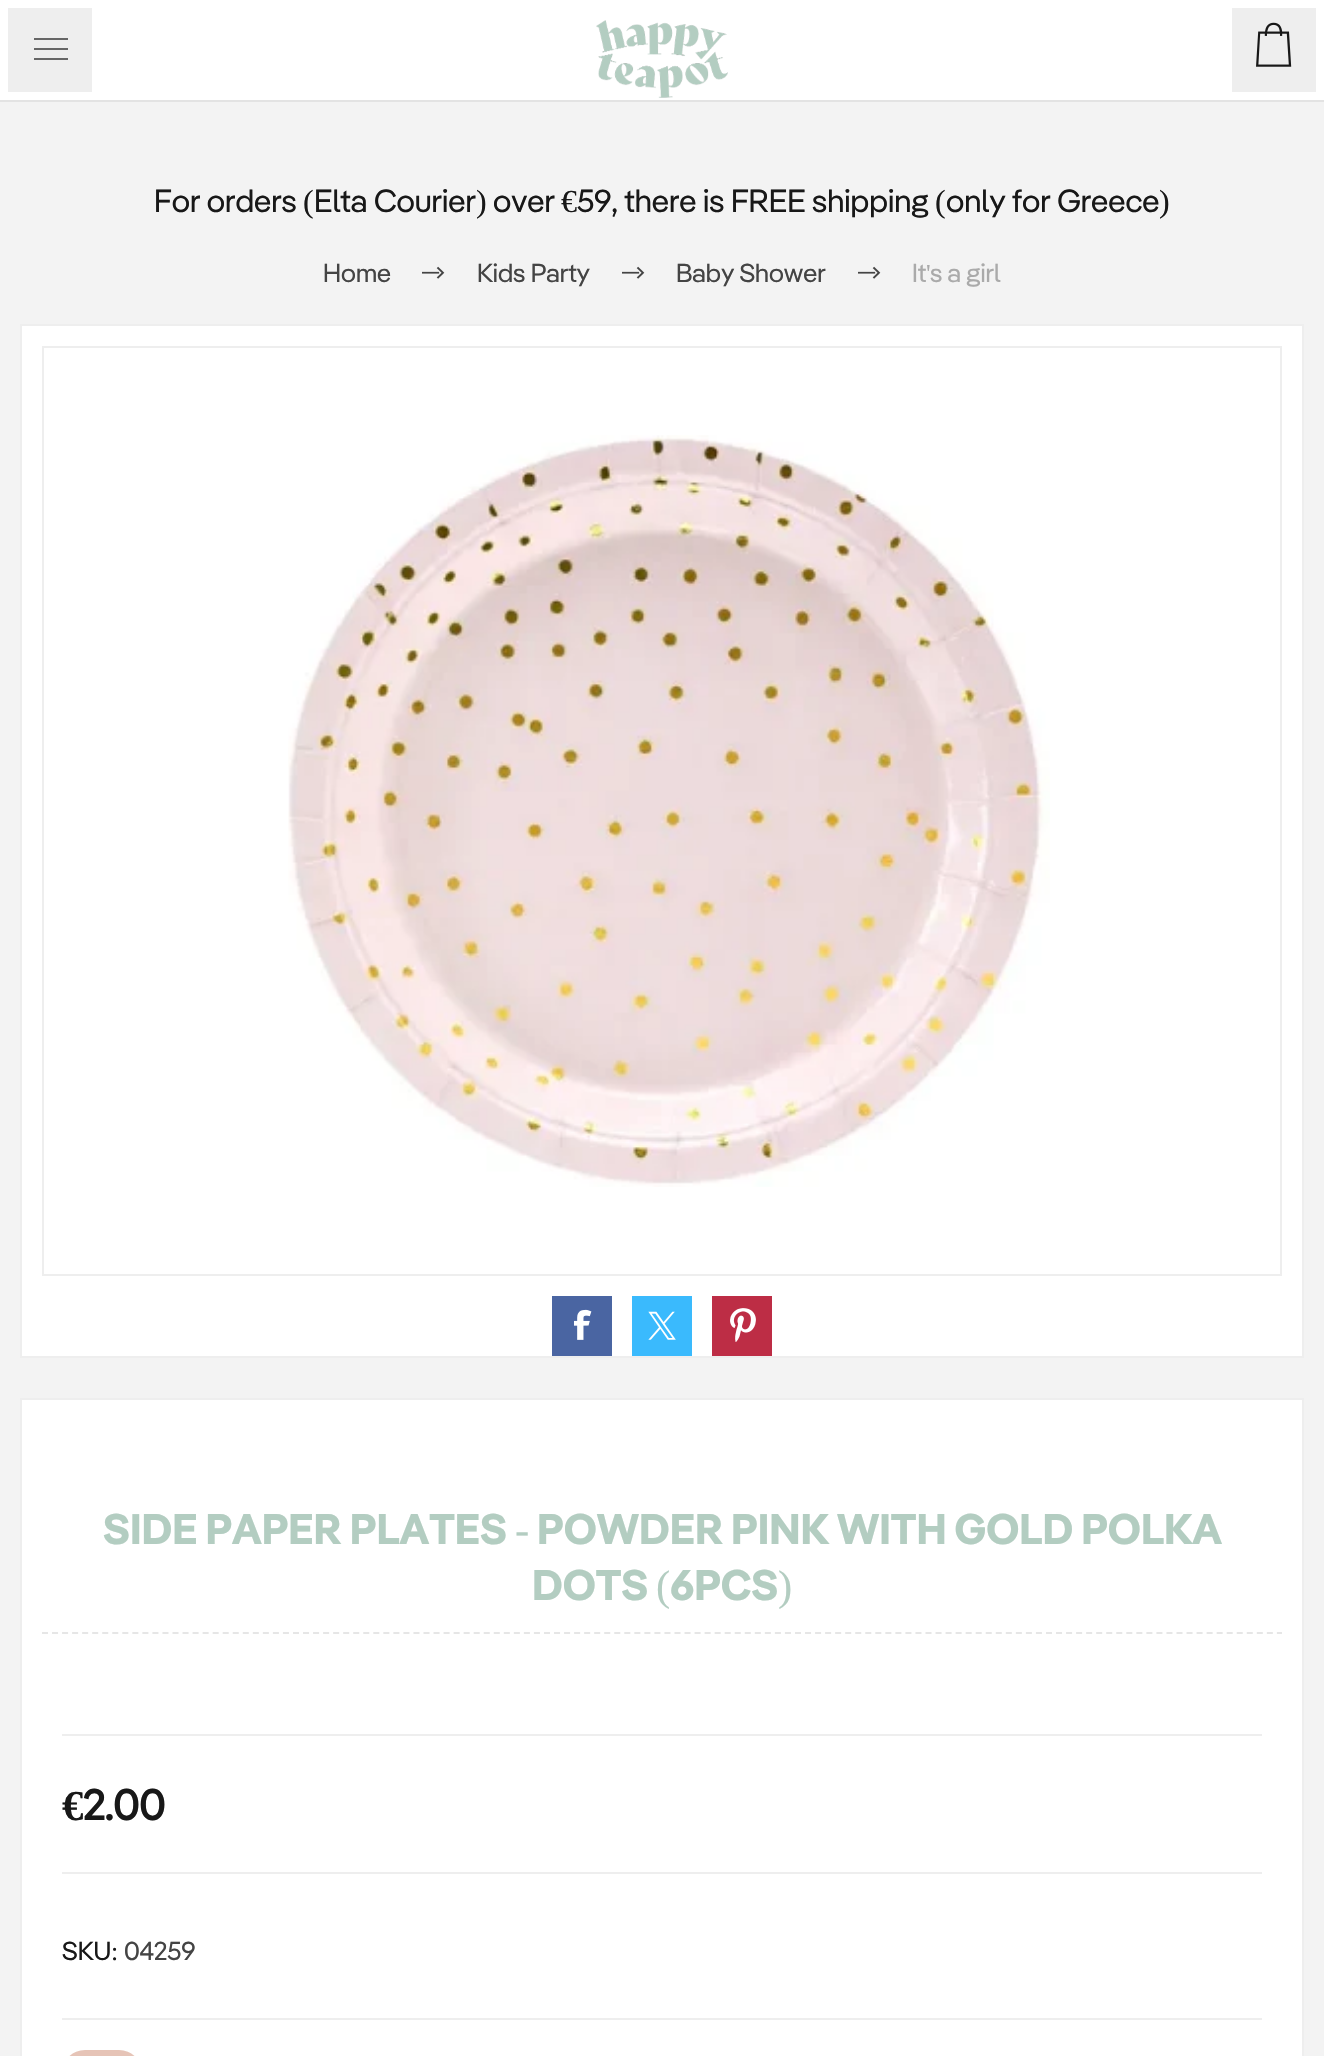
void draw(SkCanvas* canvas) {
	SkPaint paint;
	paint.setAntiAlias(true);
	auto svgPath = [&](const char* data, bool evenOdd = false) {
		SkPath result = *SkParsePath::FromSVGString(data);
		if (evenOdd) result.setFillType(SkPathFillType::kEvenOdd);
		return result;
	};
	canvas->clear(0xfff3f3f3);
	paint.setColor(0xffe3e3e3);
	canvas->drawRect(SkRect::MakeXYWH(0, 100, 1324, 2), paint);
	paint.setColor(0xffffffff);
	canvas->drawRect(SkRect::MakeXYWH(100, 0, 1124, 100), paint);
	canvas->drawImageRect(SkImages::DeferredFromEncodedData(SkData::MakeFromFileName("img1.png")), SkRect::MakeXYWH(596, 20, 132, 78), SkSamplingOptions());
	paint.setColor(0xffeeeeee);
	canvas->drawRect(SkRect::MakeXYWH(4, 4, 92, 92), paint);
	paint.setStroke(true);
	paint.setStrokeWidth(8);
	paint.setColor(0xffffffff);
	canvas->drawRect(SkRect::MakeXYWH(4, 4, 92, 92), paint);
	paint.setStroke(false);
	paint.setColor(0xff666666);
	canvas->drawRect(SkRect::MakeXYWH(34, 38, 34, 2), paint);
	canvas->drawRect(SkRect::MakeXYWH(34, 48, 34, 2), paint);
	canvas->drawRect(SkRect::MakeXYWH(34, 58, 34, 2), paint);
	paint.setColor(0xffeeeeee);
	canvas->drawRect(SkRect::MakeXYWH(1228, 4, 92, 92), paint);
	paint.setStroke(true);
	paint.setColor(0xffffffff);
	canvas->drawRect(SkRect::MakeXYWH(1228, 4, 92, 92), paint);
	canvas->drawImageRect(SkImages::DeferredFromEncodedData(SkData::MakeFromFileName("img2.png")), SkRect::MakeXYWH(1256, 22, 36, 45), SkSamplingOptions());
	SkFont f1(fontMgr->matchFamilyStyle("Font", SkFontStyle::Normal()), 32);
	f1.setSubpixel(true);
	paint.setStroke(false);
	paint.setColor(0xff181818);
	canvas->drawString("For orders", 154, 212, f1, paint);
	SkFont f2(fontMgr->matchFamilyStyle("Liberation Serif", SkFontStyle::Normal()), 32);
	f2.setSubpixel(true);
	canvas->drawString("(", 303, 212, f2, paint);
	canvas->drawString("Elta Courier", 314, 212, f1, paint);
	canvas->drawString(")", 476, 212, f2, paint);
	canvas->drawString("over", 493, 212, f1, paint);
	canvas->drawString("€", 561, 212, f2, paint);
	canvas->drawString("59, there is FREE shipping", 577, 212, f1, paint);
	canvas->drawString("(", 935, 212, f2, paint);
	canvas->drawString("only for Greece", 946, 212, f1, paint);
	canvas->drawString(")", 1159, 212, f2, paint);
	SkFont f3(fontMgr->matchFamilyStyle("Font", SkFontStyle::Normal()), 26);
	f3.setSubpixel(true);
	paint.setColor(0xff444444);
	canvas->drawString("Home", 323, 282, f3, paint);
	canvas->drawImageRect(SkImages::DeferredFromEncodedData(SkData::MakeFromFileName("img3.png")), SkRect::MakeXYWH(422, 266, 23, 13), SkSamplingOptions());
	canvas->drawString("Kids Party", 477, 282, f3, paint);
	canvas->drawImageRect(SkImages::DeferredFromEncodedData(SkData::MakeFromFileName("img3.png")), SkRect::MakeXYWH(622, 266, 23, 13), SkSamplingOptions());
	canvas->drawString("Baby Shower", 676, 282, f3, paint);
	canvas->drawImageRect(SkImages::DeferredFromEncodedData(SkData::MakeFromFileName("img3.png")), SkRect::MakeXYWH(858, 266, 23, 13), SkSamplingOptions());
	paint.setColor(0xffaaaaaa);
	canvas->drawString("It", 912, 282, f3, paint);
	SkFont f4(fontMgr->matchFamilyStyle("Liberation Serif", SkFontStyle::Normal()), 26);
	f4.setSubpixel(true);
	canvas->drawString("'", 926, 282, f4, paint);
	canvas->drawString("s a girl", 930, 282, f3, paint);
	paint.setColor(0xffffffff);
	canvas->drawRect(SkRect::MakeXYWH(21, 325, 1282, 1032), paint);
	paint.setStroke(true);
	paint.setStrokeWidth(2);
	paint.setColor(0xffeeeeee);
	canvas->drawRect(SkRect::MakeXYWH(21, 325, 1282, 1032), paint);
	canvas->drawRect(SkRect::MakeXYWH(43, 347, 1238, 928), paint);
	canvas->drawImageRect(SkImages::DeferredFromEncodedData(SkData::MakeFromFileName("img4.png")), SkRect::MakeXYWH(288, 435, 762, 752), SkSamplingOptions());
	paint.setStroke(false);
	paint.setColor(0xff4a65a2);
	canvas->drawRect(SkRect::MakeXYWH(552, 1296, 60, 60), paint);
	canvas->drawImageRect(SkImages::DeferredFromEncodedData(SkData::MakeFromFileName("img5.png")), SkRect::MakeXYWH(574, 1309, 18, 31), SkSamplingOptions());
	paint.setColor(0xff3abafd);
	canvas->drawRect(SkRect::MakeXYWH(632, 1296, 60, 60), paint);
	canvas->drawImageRect(SkImages::DeferredFromEncodedData(SkData::MakeFromFileName("img6.png")), SkRect::MakeXYWH(648, 1311, 28, 29), SkSamplingOptions());
	paint.setColor(0xffbd2d45);
	canvas->drawRect(SkRect::MakeXYWH(712, 1296, 60, 60), paint);
	canvas->drawImageRect(SkImages::DeferredFromEncodedData(SkData::MakeFromFileName("img7.png")), SkRect::MakeXYWH(730, 1308, 26, 34), SkSamplingOptions());
	paint.setColor(0xffffffff);
	canvas->drawRect(SkRect::MakeXYWH(21, 1399, 1282, 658), paint);
	paint.setStroke(true);
	paint.setColor(0xffeeeeee);
	canvas->drawRect(SkRect::MakeXYWH(21, 1399, 1282, 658), paint);
	paint.setColor(0xffe6e6e6);
	paint.setPathEffect(SkDashPathEffect::Make({{6, 4.04f}}, 0));
	canvas->drawPath(svgPath("M42 1633H1282"), paint);
	paint.setPathEffect(nullptr);
	SkFont f5(fontMgr->matchFamilyStyle("Font", SkFontStyle::Bold()), 42.7);
	f5.setSubpixel(true);
	paint.setStroke(false);
	paint.setColor(0xffb3cdc1);
	canvas->drawString("SIDE PAPER PLATES", 103, 1544, f5, paint);
	SkFont f6(fontMgr->matchFamilyStyle("Liberation Serif", SkFontStyle::Normal()), 42.7);
	f6.setSubpixel(true);
	canvas->drawString("-", 515, 1544, f6, paint);
	canvas->drawString("POWDER PINK WITH GOLD POLKA", 537, 1544, f5, paint);
	canvas->drawString("DOTS", 532, 1600, f5, paint);
	canvas->drawString("(", 656, 1600, f6, paint);
	canvas->drawString("6PCS", 670, 1600, f5, paint);
	canvas->drawString(")", 778, 1600, f6, paint);
	paint.setColor(0xffeeeeee);
	canvas->drawRect(SkRect::MakeXYWH(62, 1734, 1200, 2), paint);
	canvas->drawRect(SkRect::MakeXYWH(62, 1872, 1200, 2), paint);
	SkFont f7(fontMgr->matchFamilyStyle("Liberation Serif", SkFontStyle::Bold()), 42.7);
	f7.setSubpixel(true);
	paint.setColor(0xff181818);
	canvas->drawString("€", 62, 1820, f7, paint);
	SkFont f8(fontMgr->matchFamilyStyle("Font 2", SkFontStyle::Bold()), 42.7);
	f8.setSubpixel(true);
	canvas->drawString("2.00", 83, 1820, f8, paint);
	paint.setColor(0xffeeeeee);
	canvas->drawRect(SkRect::MakeXYWH(62, 2018, 1200, 2), paint);
	paint.setColor(0xff181818);
	canvas->drawString("SKU", 62, 1960, f3, paint);
	canvas->drawString(":", 111, 1960, f4, paint);
	paint.setColor(0xff444444);
	canvas->drawString("04259", 124, 1960, f3, paint);
	paint.setColor(0xffe6c4b7);
	canvas->drawRoundRect(SkRect::MakeXYWH(62, 2050, 80, 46), 40, 40, paint);
}
